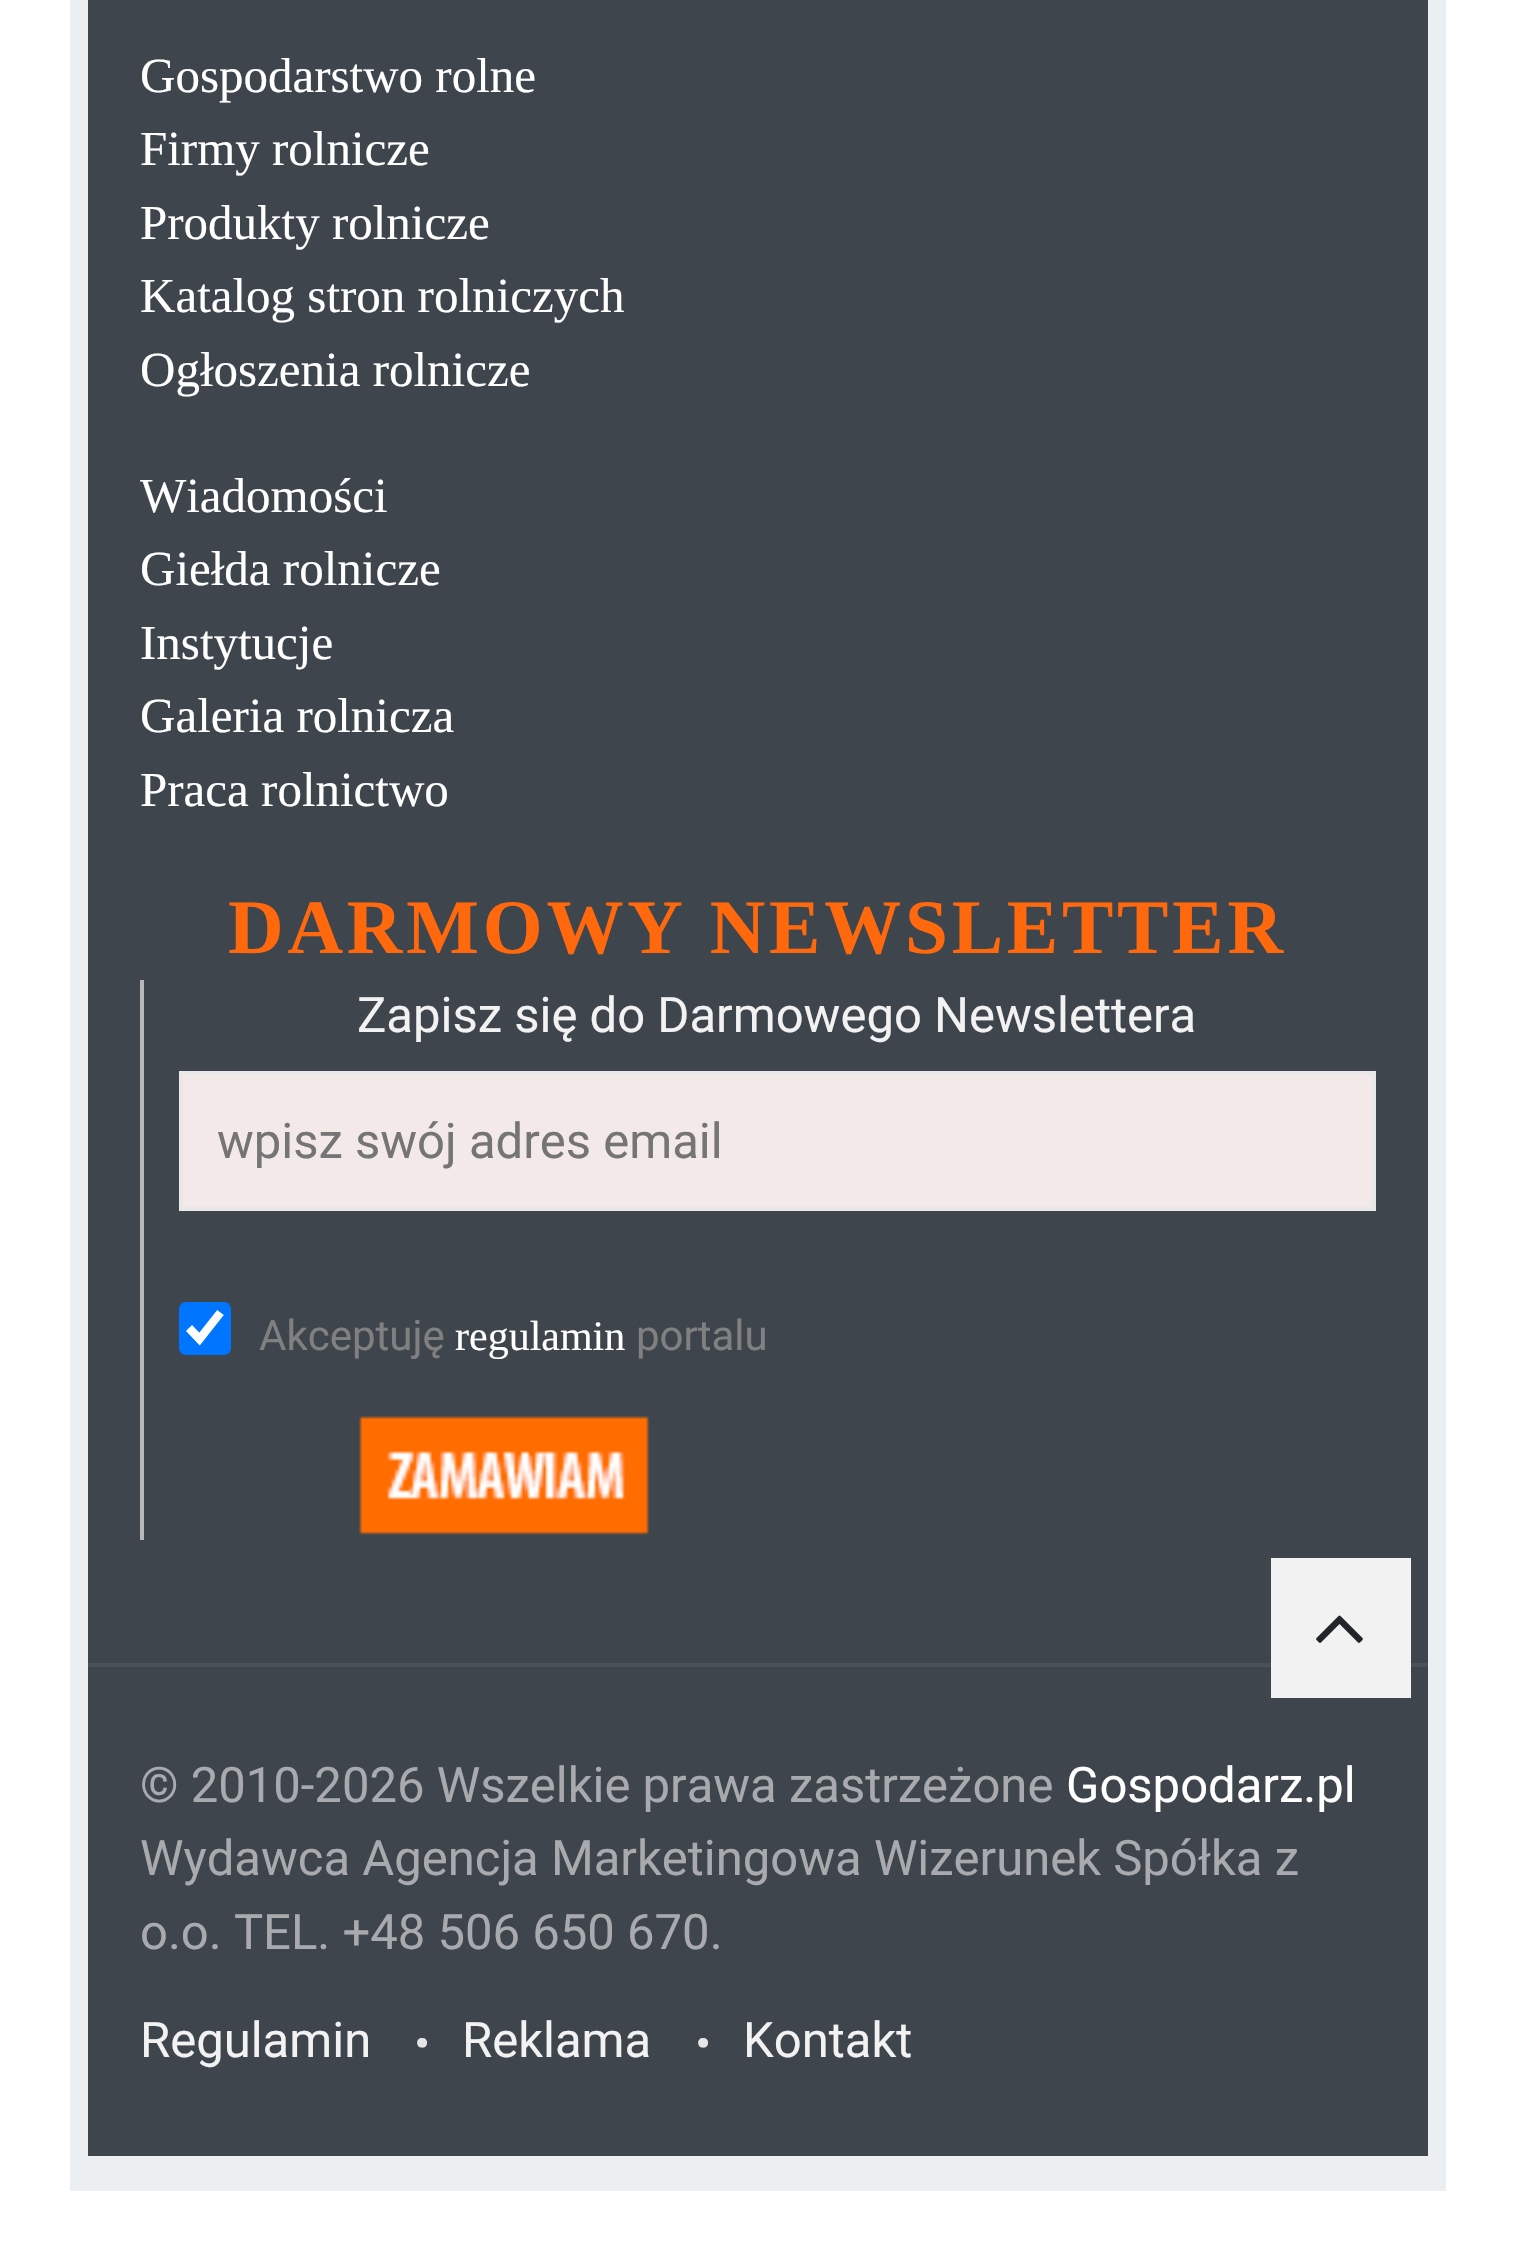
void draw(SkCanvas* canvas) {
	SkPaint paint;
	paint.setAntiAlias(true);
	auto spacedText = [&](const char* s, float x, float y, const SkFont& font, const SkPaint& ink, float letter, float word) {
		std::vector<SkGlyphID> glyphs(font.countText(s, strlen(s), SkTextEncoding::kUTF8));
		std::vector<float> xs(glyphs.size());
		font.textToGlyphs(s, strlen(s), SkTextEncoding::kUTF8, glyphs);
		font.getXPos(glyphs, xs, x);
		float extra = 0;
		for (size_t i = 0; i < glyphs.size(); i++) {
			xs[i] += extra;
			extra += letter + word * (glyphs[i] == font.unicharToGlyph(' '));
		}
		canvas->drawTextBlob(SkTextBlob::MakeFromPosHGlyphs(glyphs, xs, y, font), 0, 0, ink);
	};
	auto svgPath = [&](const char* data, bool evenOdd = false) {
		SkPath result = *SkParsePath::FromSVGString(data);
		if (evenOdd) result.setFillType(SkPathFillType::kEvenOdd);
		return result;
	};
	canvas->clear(0xffffffff);
	paint.setColor(0xffeceff1);
	canvas->drawRect(SkRect::MakeXYWH(70, 0, 1376, 2191), paint);
	paint.setColor(0xff3e454c);
	canvas->drawRect(SkRect::MakeXYWH(88, 0, 1340, 2156), paint);
	SkFont f1(fontMgr->matchFamilyStyle("Liberation Serif", SkFontStyle::Normal()), 49);
	f1.setSubpixel(true);
	paint.setColor(0xffffffff);
	canvas->drawString("Gospodarstwo rolne", 140, 92, f1, paint);
	canvas->drawString("Firmy rolnicze", 140, 165, f1, paint);
	canvas->drawString("Produkty rolnicze", 140, 239, f1, paint);
	canvas->drawString("Katalog stron rolniczych", 140, 312, f1, paint);
	canvas->drawString("Ogłoszenia rolnicze", 140, 386, f1, paint);
	canvas->drawString("Wiadomości", 140, 512, f1, paint);
	canvas->drawString("Giełda rolnicze", 140, 585, f1, paint);
	canvas->drawString("Instytucje", 140, 659, f1, paint);
	canvas->drawString("Galeria rolnicza", 140, 732, f1, paint);
	canvas->drawString("Praca rolnictwo", 140, 806, f1, paint);
	SkFont f2(fontMgr->matchFamilyStyle("Liberation Serif", SkFontStyle::Bold()), 77);
	f2.setSubpixel(true);
	paint.setColor(0xffff680d);
	spacedText("DARMOWY NEWSLETTER", 228, 953, f2, paint, 3.8, 0);
	paint.setColor(0xffb9b7b7);
	canvas->drawRect(SkRect::MakeXYWH(140, 980, 4, 560), paint);
	SkFont f3(fontMgr->matchFamilyStyle("Roboto", SkFontStyle::Normal()), 49);
	f3.setSubpixel(true);
	paint.setColor(0xfff2f2f2);
	canvas->drawString("Zapisz się do Darmowego Newslettera", 357, 1032, f3, paint);
	paint.setColor(0xfff4e9e9);
	canvas->drawRect(SkRect::MakeXYWH(181, 1073, 1193, 136), paint);
	paint.setStroke(true);
	paint.setStrokeWidth(4);
	paint.setColor(0xffe8e8e8);
	canvas->drawRect(SkRect::MakeXYWH(181, 1073, 1193, 136), paint);
	paint.setStroke(false);
	paint.setColor(0xff757575);
	canvas->drawString("wpisz swój adres email", 217, 1158, f3, paint);
	paint.setColor(0xff0075ff);
	canvas->drawRoundRect(SkRect::MakeXYWH(179, 1302, 52, 53), 7, 7, paint);
	paint.setStroke(true);
	paint.setStrokeWidth(8.4);
	paint.setColor(0xffffffff);
	canvas->drawPath(svgPath("M189 1328L199.5 1339L220.5 1312.5"), paint);
	SkFont f4(fontMgr->matchFamilyStyle("Roboto", SkFontStyle::Normal()), 42);
	f4.setSubpixel(true);
	paint.setStroke(false);
	paint.setColor(0xff808080);
	canvas->drawString("Akceptuję", 259, 1350, f4, paint);
	SkFont f5(fontMgr->matchFamilyStyle("Liberation Serif", SkFontStyle::Normal()), 42);
	f5.setSubpixel(true);
	paint.setColor(0xffffffff);
	canvas->drawString("regulamin", 455, 1350, f5, paint);
	paint.setColor(0xff808080);
	canvas->drawString("portalu", 636, 1350, f4, paint);
	canvas->drawImageRect(SkImages::DeferredFromEncodedData(SkData::MakeFromFileName("img1.png")), SkRect::MakeXYWH(359, 1416, 290, 119), SkSamplingOptions());
	paint.setColor(0xff4b5158);
	canvas->drawRect(SkRect::MakeXYWH(88, 1663, 1340, 4), paint);
	paint.setColor(0xffa8aaad);
	canvas->drawString("© 2010-2026 Wszelkie prawa zastrzeżone", 140, 1802, f3, paint);
	paint.setColor(0xffffffff);
	canvas->drawString("Gospodarz.pl", 1066, 1802, f3, paint);
	paint.setColor(0xffa8aaad);
	canvas->drawString("Wydawca Agencja Marketingowa Wizerunek Spółka z", 140, 1875, f3, paint);
	canvas->drawString("o.o. TEL. +48 506 650 670.", 140, 1949, f3, paint);
	paint.setColor(0xfff2f2f2);
	canvas->drawString("Regulamin", 140, 2057, f3, paint);
	SkFont f6(fontMgr->matchFamilyStyle("Roboto", SkFontStyle::Normal()), 88);
	f6.setSubpixel(true);
	paint.setColor(0xffe6e6e7);
	canvas->drawString(".", 411, 2047, f6, paint);
	paint.setColor(0xfff2f2f2);
	canvas->drawString("Reklama", 462, 2057, f3, paint);
	paint.setColor(0xffe6e6e7);
	canvas->drawString(".", 692, 2047, f6, paint);
	paint.setColor(0xfff2f2f2);
	canvas->drawString("Kontakt", 743, 2057, f3, paint);
	canvas->drawRect(SkRect::MakeXYWH(1271, 1558, 140, 140), paint);
	canvas->drawImageRect(SkImages::DeferredFromEncodedData(SkData::MakeFromFileName("img2.png")), SkRect::MakeXYWH(1316, 1615, 47, 28), SkSamplingOptions());
}
